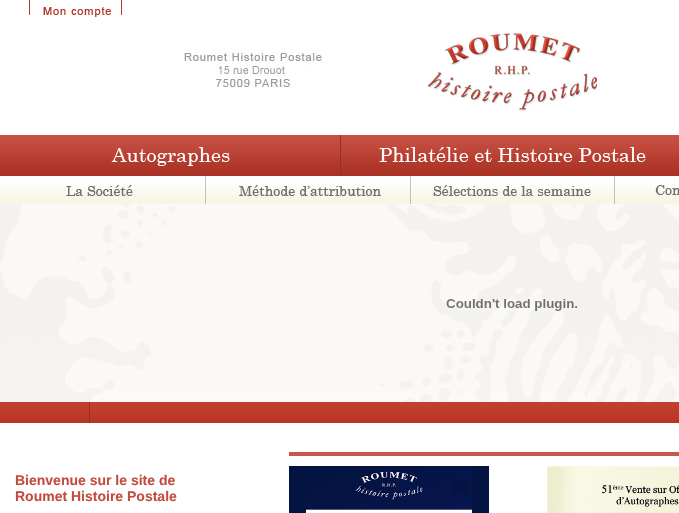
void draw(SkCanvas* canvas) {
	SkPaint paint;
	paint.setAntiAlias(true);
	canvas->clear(0xffffffff);
	canvas->drawImageRect(SkImages::DeferredFromEncodedData(SkData::MakeFromFileName("img1.png")), SkRect::MakeXYWH(0, 204, 679, 198), SkSamplingOptions());
	canvas->drawImageRect(SkImages::DeferredFromEncodedData(SkData::MakeFromFileName("img2.png")), SkRect::MakeXYWH(29, 0, 93, 20), SkSamplingOptions());
	canvas->drawImageRect(SkImages::DeferredFromEncodedData(SkData::MakeFromFileName("img3.png")), SkRect::MakeXYWH(176, 33, 154, 77), SkSamplingOptions());
	canvas->drawImageRect(SkImages::DeferredFromEncodedData(SkData::MakeFromFileName("img4.png")), SkRect::MakeXYWH(427, 33, 170, 77), SkSamplingOptions());
	canvas->drawImageRect(SkImages::DeferredFromEncodedData(SkData::MakeFromFileName("img5.png")), SkRect::MakeXYWH(0, 110, 679, 25), SkSamplingOptions());
	canvas->drawImageRect(SkImages::DeferredFromEncodedData(SkData::MakeFromFileName("img6.png")), SkRect::MakeXYWH(0, 135, 340, 41), SkSamplingOptions());
	paint.setColor(0xff982e21);
	canvas->drawRect(SkRect::MakeXYWH(340, 135, 1, 41), paint);
	canvas->drawImageRect(SkImages::DeferredFromEncodedData(SkData::MakeFromFileName("img7.png")), SkRect::MakeXYWH(341, 135, 338, 41), SkSamplingOptions());
	canvas->drawImageRect(SkImages::DeferredFromEncodedData(SkData::MakeFromFileName("img8.png")), SkRect::MakeXYWH(0, 176, 205, 28), SkSamplingOptions());
	canvas->drawImageRect(SkImages::DeferredFromEncodedData(SkData::MakeFromFileName("img9.png")), SkRect::MakeXYWH(205, 176, 1, 28), SkSamplingOptions());
	canvas->drawImageRect(SkImages::DeferredFromEncodedData(SkData::MakeFromFileName("img10.png")), SkRect::MakeXYWH(206, 176, 204, 28), SkSamplingOptions());
	canvas->drawImageRect(SkImages::DeferredFromEncodedData(SkData::MakeFromFileName("img9.png")), SkRect::MakeXYWH(410, 176, 1, 28), SkSamplingOptions());
	canvas->drawImageRect(SkImages::DeferredFromEncodedData(SkData::MakeFromFileName("img11.png")), SkRect::MakeXYWH(411, 176, 203, 28), SkSamplingOptions());
	canvas->drawImageRect(SkImages::DeferredFromEncodedData(SkData::MakeFromFileName("img9.png")), SkRect::MakeXYWH(614, 176, 1, 28), SkSamplingOptions());
	canvas->drawImageRect(SkImages::DeferredFromEncodedData(SkData::MakeFromFileName("img12.png")), SkRect::MakeXYWH(615, 176, 64, 28), SkSamplingOptions());
	canvas->drawImageRect(SkImages::DeferredFromEncodedData(SkData::MakeFromFileName("img13.png")), SkRect::MakeXYWH(446, 299, 131, 12), SkSamplingOptions());
	canvas->drawImageRect(SkImages::DeferredFromEncodedData(SkData::MakeFromFileName("img14.png")), SkRect::MakeXYWH(0, 402, 90, 21), SkSamplingOptions());
	canvas->drawImageRect(SkImages::DeferredFromEncodedData(SkData::MakeFromFileName("img15.png")), SkRect::MakeXYWH(90, 402, 6, 21), SkSamplingOptions());
	canvas->drawImageRect(SkImages::DeferredFromEncodedData(SkData::MakeFromFileName("img16.png")), SkRect::MakeXYWH(96, 402, 583, 21), SkSamplingOptions());
	paint.setColor(0xffc7574b);
	canvas->drawRect(SkRect::MakeXYWH(289, 452, 390, 4), paint);
	SkFont f1(fontMgr->matchFamilyStyle("Liberation Sans", SkFontStyle::Bold()), 14);
	f1.setSubpixel(true);
	paint.setColor(0xffc34c3e);
	canvas->drawString("Bienvenue sur le site de", 15, 485, f1, paint);
	canvas->drawString("Roumet Histoire Postale", 15, 501, f1, paint);
	canvas->drawImageRect(SkImages::DeferredFromEncodedData(SkData::MakeFromFileName("img17.png")), SkRect::MakeXYWH(289, 466, 200, 47), SkSamplingOptions());
	canvas->drawImageRect(SkImages::DeferredFromEncodedData(SkData::MakeFromFileName("img18.png")), SkRect::MakeXYWH(547, 466, 132, 47), SkSamplingOptions());
}
